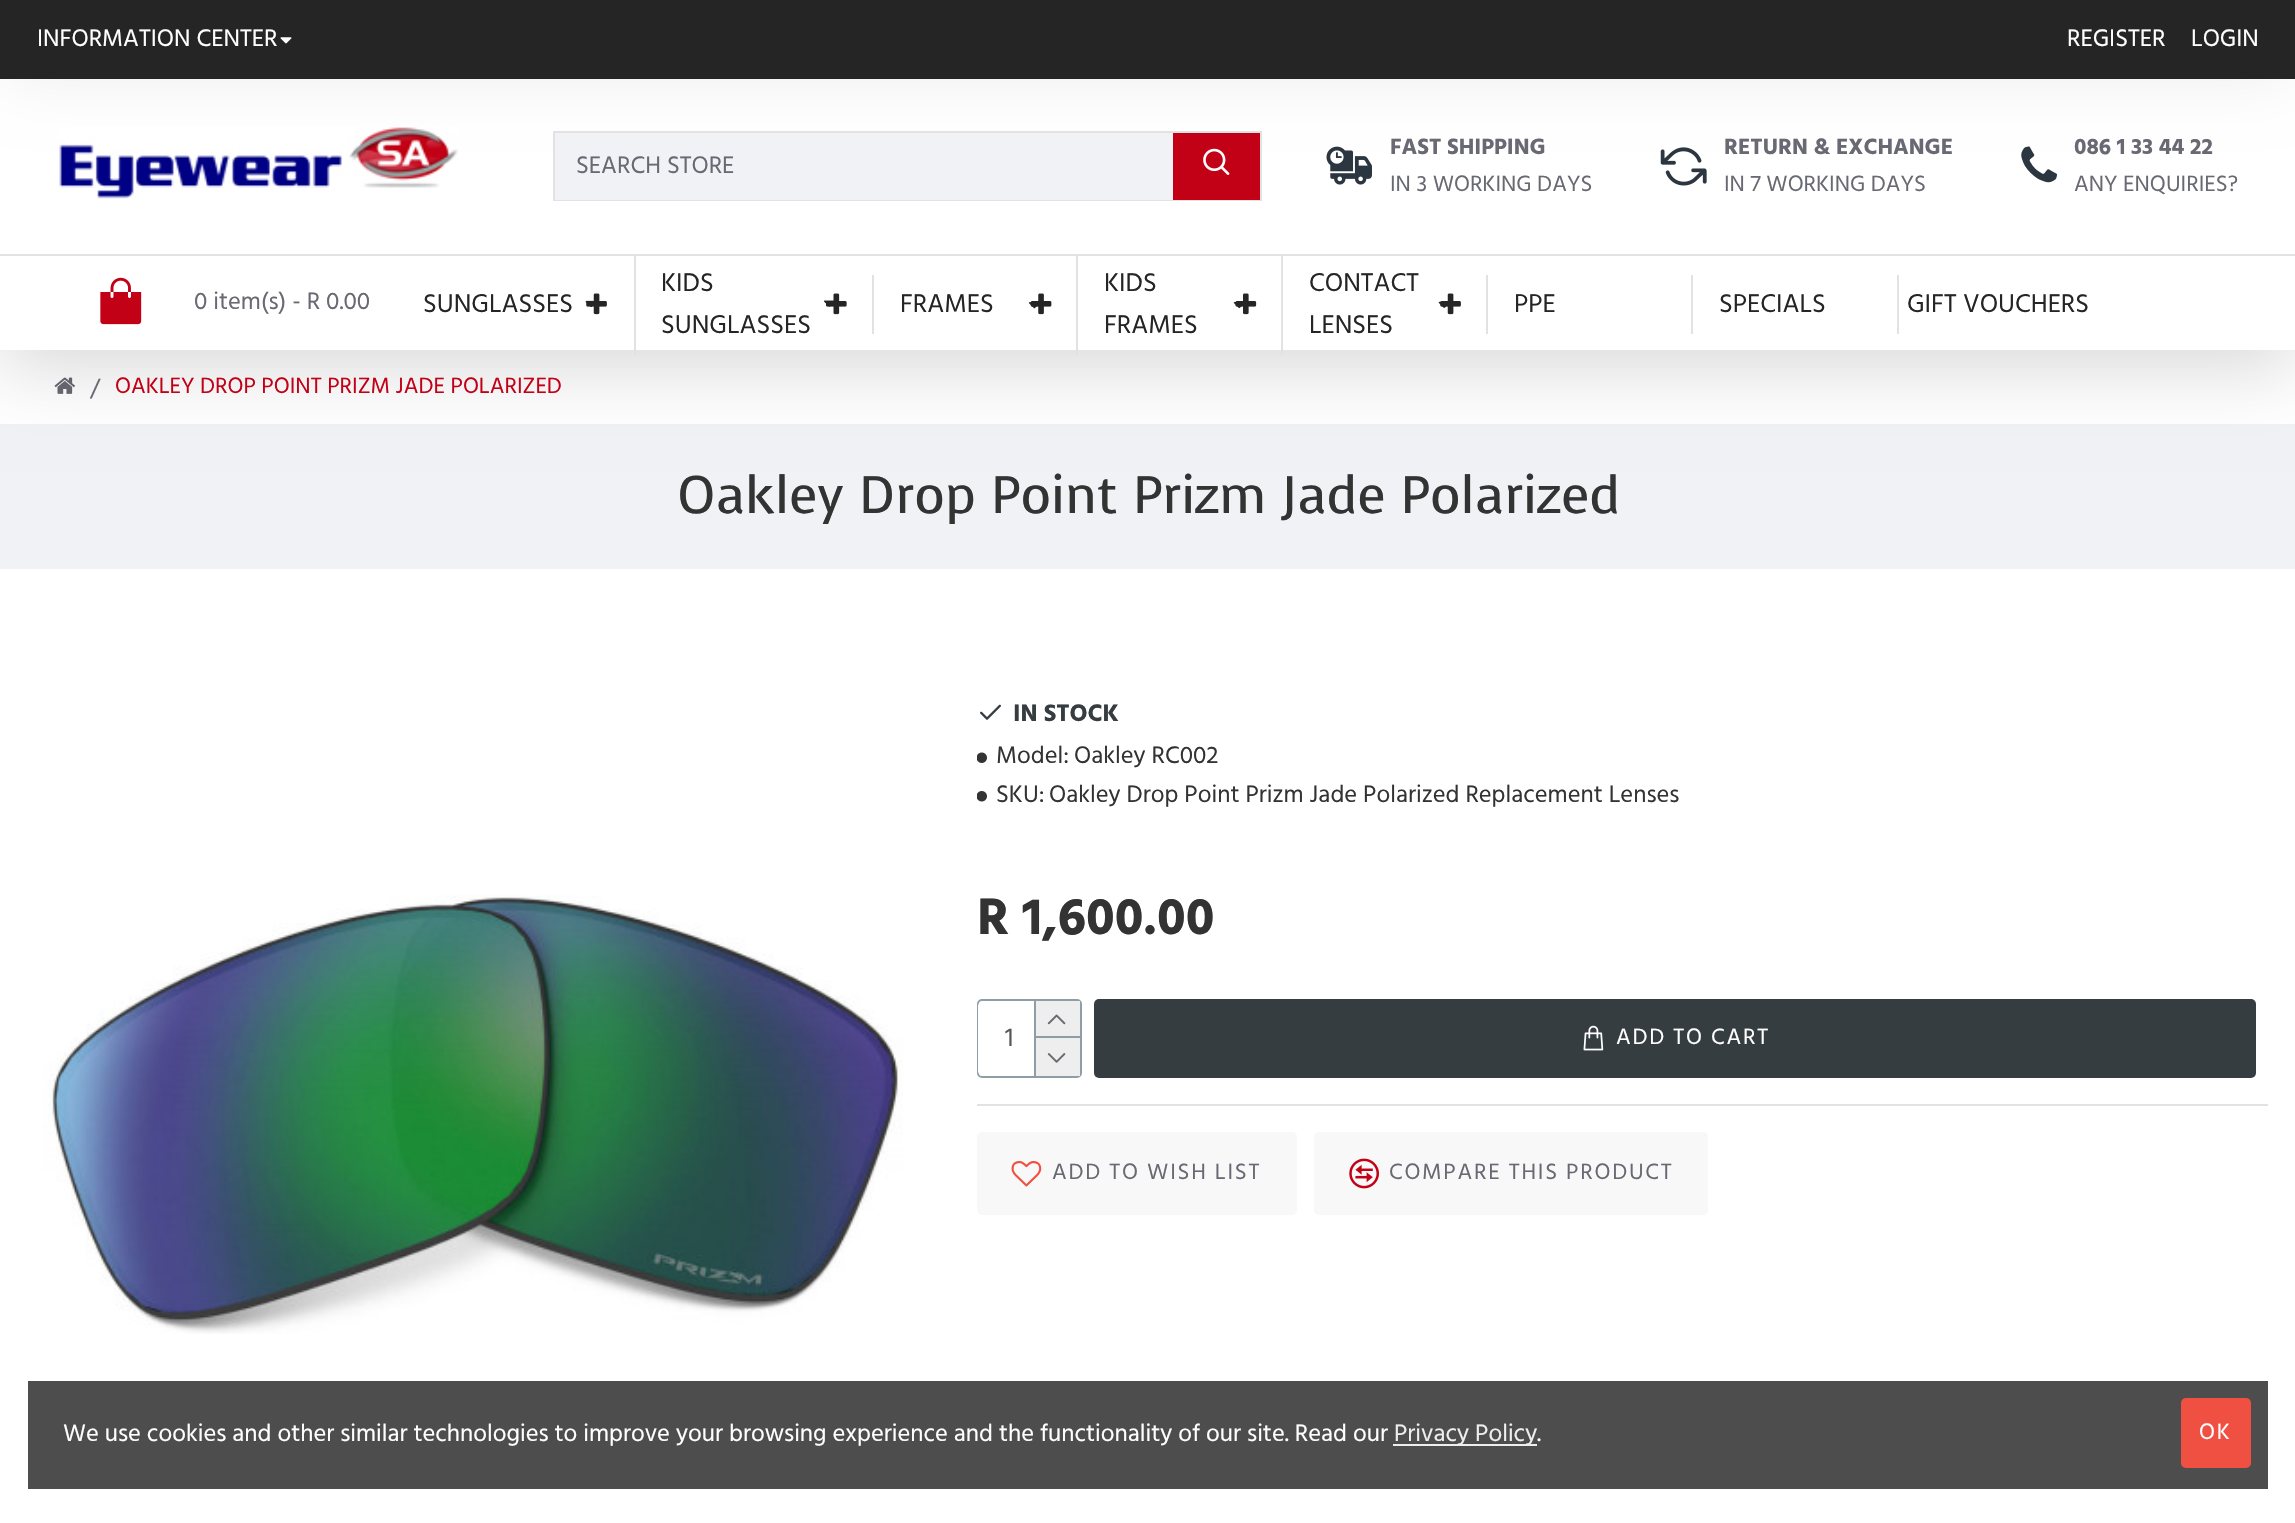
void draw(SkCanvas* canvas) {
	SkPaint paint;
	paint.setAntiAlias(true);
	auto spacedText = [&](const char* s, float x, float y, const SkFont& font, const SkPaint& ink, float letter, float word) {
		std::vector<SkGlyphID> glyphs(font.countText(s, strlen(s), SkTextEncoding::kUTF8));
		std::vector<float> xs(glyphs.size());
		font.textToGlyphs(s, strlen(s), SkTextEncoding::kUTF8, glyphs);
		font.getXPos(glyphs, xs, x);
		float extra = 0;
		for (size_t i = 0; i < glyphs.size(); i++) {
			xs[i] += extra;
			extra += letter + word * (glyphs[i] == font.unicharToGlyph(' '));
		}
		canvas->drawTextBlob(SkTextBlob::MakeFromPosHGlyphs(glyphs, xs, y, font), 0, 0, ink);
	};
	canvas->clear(0xffffffff);
	canvas->drawImageRect(SkImages::DeferredFromEncodedData(SkData::MakeFromFileName("img18.png")), SkRect::MakeXYWH(54, 377, 21, 17), SkSamplingOptions());
	paint.setColor(0xfff0f2f5);
	canvas->drawRect(SkRect::MakeXYWH(0, 424, 2295, 145), paint);
	paint.setColor(0x26000000);
	paint.setMaskFilter(SkMaskFilter::MakeBlur(kNormal_SkBlurStyle, 35));
	canvas->drawRect(SkRect::MakeXYWH(0, 18, 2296, 350), paint);
	paint.setMaskFilter(nullptr);
	paint.setColor(0xffffffff);
	canvas->drawRect(SkRect::MakeXYWH(0, 79, 2295, 271), paint);
	paint.setColor(0x12000000);
	paint.setMaskFilter(SkMaskFilter::MakeBlur(kNormal_SkBlurStyle, 30.5));
	canvas->drawRect(SkRect::MakeXYWH(9, 18, 2278, 61), paint);
	paint.setMaskFilter(nullptr);
	paint.setColor(0xff252525);
	canvas->drawRect(SkRect::MakeXYWH(0, 0, 2295, 79), paint);
	SkFont f1(fontMgr->matchFamilyStyle("Hind Madurai", SkFontStyle::Normal()), 24.5);
	f1.setSubpixel(true);
	paint.setColor(0xffffffff);
	canvas->drawString("INFORMATION CENTER", 37, 46, f1, paint);
	canvas->drawImageRect(SkImages::DeferredFromEncodedData(SkData::MakeFromFileName("img1.png")), SkRect::MakeXYWH(280, 37, 12, 7), SkSamplingOptions());
	canvas->drawString("REGISTER", 2067, 46, f1, paint);
	canvas->drawString("LOGIN", 2191, 46, f1, paint);
	canvas->drawImageRect(SkImages::DeferredFromEncodedData(SkData::MakeFromFileName("img2.png")), SkRect::MakeXYWH(59, 127, 400, 72), SkSamplingOptions());
	paint.setStroke(true);
	paint.setStrokeWidth(2);
	paint.setColor(0xffe2e2e2);
	canvas->drawRect(SkRect::MakeXYWH(554, 132, 707, 68), paint);
	paint.setStroke(false);
	paint.setColor(0xfff0f2f5);
	canvas->drawRect(SkRect::MakeXYWH(555, 133, 618, 67), paint);
	paint.setColor(0xff696973);
	canvas->drawString("SEARCH STORE", 576, 173, f1, paint);
	paint.setColor(0xffc20016);
	canvas->drawRect(SkRect::MakeXYWH(1173, 133, 87, 67), paint);
	canvas->drawImageRect(SkImages::DeferredFromEncodedData(SkData::MakeFromFileName("img3.png")), SkRect::MakeXYWH(1203, 148, 27, 27), SkSamplingOptions());
	canvas->drawImageRect(SkImages::DeferredFromEncodedData(SkData::MakeFromFileName("img4.png")), SkRect::MakeXYWH(1326, 146, 46, 39), SkSamplingOptions());
	SkFont f2(fontMgr->matchFamilyStyle("Hind Madurai", SkFontStyle::Bold()), 22.75);
	f2.setSubpixel(true);
	paint.setColor(0xff696973);
	canvas->drawString("FAST SHIPPING", 1390, 154, f2, paint);
	SkFont f3(fontMgr->matchFamilyStyle("Hind Madurai", SkFontStyle::Normal()), 22.75);
	f3.setSubpixel(true);
	canvas->drawString("IN 3 WORKING DAYS", 1390, 191, f3, paint);
	canvas->drawImageRect(SkImages::DeferredFromEncodedData(SkData::MakeFromFileName("img5.png")), SkRect::MakeXYWH(1660, 147, 47, 39), SkSamplingOptions());
	canvas->drawString("RETURN & EXCHANGE", 1724, 154, f2, paint);
	canvas->drawString("IN 7 WORKING DAYS", 1724, 191, f3, paint);
	canvas->drawImageRect(SkImages::DeferredFromEncodedData(SkData::MakeFromFileName("img6.png")), SkRect::MakeXYWH(2021, 146, 36, 37), SkSamplingOptions());
	canvas->drawString("086 1 33 44 22", 2074, 154, f2, paint);
	canvas->drawString("ANY ENQUIRIES?", 2074, 191, f3, paint);
	paint.setColor(0xffe2e2e2);
	canvas->drawRect(SkRect::MakeXYWH(0, 254, 2295, 2), paint);
	canvas->drawImageRect(SkImages::DeferredFromEncodedData(SkData::MakeFromFileName("img7.png")), SkRect::MakeXYWH(100, 277, 42, 48), SkSamplingOptions());
	paint.setColor(0xff696973);
	canvas->drawString("0 item(s) - R 0.00", 194, 309, f1, paint);
	SkFont f4(fontMgr->matchFamilyStyle("Hind Madurai", SkFontStyle::Normal()), 26.25);
	f4.setSubpixel(true);
	paint.setColor(0xff252525);
	canvas->drawString("SUNGLASSES", 423, 312, f4, paint);
	canvas->drawImageRect(SkImages::DeferredFromEncodedData(SkData::MakeFromFileName("img9.png")), SkRect::MakeXYWH(585, 300, 9, 7), SkSamplingOptions());
	canvas->drawImageRect(SkImages::DeferredFromEncodedData(SkData::MakeFromFileName("img8.png")), SkRect::MakeXYWH(586, 293, 21, 22), SkSamplingOptions());
	paint.setColor(0xffe2e2e2);
	canvas->drawRect(SkRect::MakeXYWH(634, 254, 2, 101), paint);
	paint.setColor(0xff252525);
	canvas->drawString("KIDS", 661, 291, f4, paint);
	canvas->drawString("SUNGLASSES", 661, 333, f4, paint);
	canvas->drawImageRect(SkImages::DeferredFromEncodedData(SkData::MakeFromFileName("img11.png")), SkRect::MakeXYWH(824, 300, 10, 7), SkSamplingOptions());
	canvas->drawImageRect(SkImages::DeferredFromEncodedData(SkData::MakeFromFileName("img10.png")), SkRect::MakeXYWH(826, 293, 21, 22), SkSamplingOptions());
	paint.setColor(0xffe2e2e2);
	canvas->drawRect(SkRect::MakeXYWH(872, 275, 2, 59), paint);
	paint.setColor(0xff252525);
	canvas->drawString("FRAMES", 900, 312, f4, paint);
	canvas->drawImageRect(SkImages::DeferredFromEncodedData(SkData::MakeFromFileName("img13.png")), SkRect::MakeXYWH(1028, 302, 9, 7), SkSamplingOptions());
	canvas->drawImageRect(SkImages::DeferredFromEncodedData(SkData::MakeFromFileName("img12.png")), SkRect::MakeXYWH(1030, 293, 22, 22), SkSamplingOptions());
	paint.setColor(0xffe2e2e2);
	canvas->drawRect(SkRect::MakeXYWH(1076, 254, 2, 101), paint);
	paint.setColor(0xff252525);
	canvas->drawString("KIDS", 1104, 291, f4, paint);
	canvas->drawString("FRAMES", 1104, 333, f4, paint);
	canvas->drawImageRect(SkImages::DeferredFromEncodedData(SkData::MakeFromFileName("img15.png")), SkRect::MakeXYWH(1233, 302, 9, 7), SkSamplingOptions());
	canvas->drawImageRect(SkImages::DeferredFromEncodedData(SkData::MakeFromFileName("img14.png")), SkRect::MakeXYWH(1235, 293, 22, 22), SkSamplingOptions());
	paint.setColor(0xffe2e2e2);
	canvas->drawRect(SkRect::MakeXYWH(1281, 254, 2, 101), paint);
	paint.setColor(0xff252525);
	canvas->drawString("CONTACT", 1309, 291, f4, paint);
	canvas->drawString("LENSES", 1309, 333, f4, paint);
	canvas->drawImageRect(SkImages::DeferredFromEncodedData(SkData::MakeFromFileName("img17.png")), SkRect::MakeXYWH(1438, 301, 9, 7), SkSamplingOptions());
	canvas->drawImageRect(SkImages::DeferredFromEncodedData(SkData::MakeFromFileName("img16.png")), SkRect::MakeXYWH(1440, 293, 21, 22), SkSamplingOptions());
	paint.setColor(0xffe2e2e2);
	canvas->drawRect(SkRect::MakeXYWH(1486, 275, 2, 59), paint);
	paint.setColor(0xff252525);
	canvas->drawString("PPE", 1514, 312, f4, paint);
	paint.setColor(0xffe2e2e2);
	canvas->drawRect(SkRect::MakeXYWH(1691, 275, 2, 59), paint);
	paint.setColor(0xff252525);
	canvas->drawString("SPECIALS", 1719, 312, f4, paint);
	paint.setColor(0xffe2e2e2);
	canvas->drawRect(SkRect::MakeXYWH(1897, 275, 2, 59), paint);
	paint.setColor(0xff252525);
	canvas->drawString("GIFT VOUCHERS", 1907, 312, f4, paint);
	paint.setColor(0xff696973);
	canvas->drawString("/", 90, 396, f1, paint);
	paint.setColor(0xffc20016);
	canvas->drawString("OAKLEY DROP POINT PRIZM JADE POLARIZED", 115, 393, f3, paint);
	SkFont f5(fontMgr->matchFamilyStyle("Voces", SkFontStyle::Normal()), 52.5);
	f5.setSubpixel(true);
	paint.setColor(0xff333333);
	canvas->drawString("Oakley Drop Point Prizm Jade Polarized", 677, 513, f5, paint);
	canvas->drawImageRect(SkImages::DeferredFromEncodedData(SkData::MakeFromFileName("img19.png")), SkRect::MakeXYWH(43, 895, 860, 439), SkSamplingOptions());
	canvas->drawImageRect(SkImages::DeferredFromEncodedData(SkData::MakeFromFileName("img20.png")), SkRect::MakeXYWH(980, 704, 21, 16), SkSamplingOptions());
	SkFont f6(fontMgr->matchFamilyStyle("Hind Madurai", SkFontStyle::Bold()), 24.5);
	f6.setSubpixel(true);
	paint.setColor(0xff353d41);
	canvas->drawString("IN STOCK", 1013, 721, f6, paint);
	canvas->drawImageRect(SkImages::DeferredFromEncodedData(SkData::MakeFromFileName("img21.png")), SkRect::MakeXYWH(977, 752, 10, 11), SkSamplingOptions());
	paint.setColor(0xff333333);
	canvas->drawString("Model:", 996, 763, f1, paint);
	canvas->drawString("Oakley RC002", 1074, 763, f1, paint);
	canvas->drawImageRect(SkImages::DeferredFromEncodedData(SkData::MakeFromFileName("img22.png")), SkRect::MakeXYWH(977, 791, 10, 11), SkSamplingOptions());
	canvas->drawString("SKU:", 996, 802, f1, paint);
	canvas->drawString("Oakley Drop Point Prizm Jade Polarized Replacement Lenses", 1049, 802, f1, paint);
	SkFont f7(fontMgr->matchFamilyStyle("Hind Madurai", SkFontStyle::Bold()), 52.5);
	f7.setSubpixel(true);
	canvas->drawString("R 1,600.00", 977, 934, f7, paint);
	paint.setStroke(true);
	paint.setColor(0xff8f9da6);
	canvas->drawRoundRect(SkRect::MakeXYWH(978, 1000, 103, 77), 4, 4, paint);
	paint.setStroke(false);
	paint.setColor(0xffffffff);
	canvas->drawRoundRect(SkRect::MakeXYWH(978, 1001, 102, 75), 5, 5, paint);
	paint.setColor(0xff555555);
	canvas->drawString("1", 1005, 1046, f4, paint);
	paint.setColor(0xff8f9da6);
	canvas->drawRect(SkRect::MakeXYWH(1034, 1001, 2, 75), paint);
	paint.setColor(0xffeeeeee);
	canvas->drawRect(SkRect::MakeXYWH(1036, 1001, 44, 35), paint);
	paint.setColor(0xff8f9da6);
	canvas->drawRect(SkRect::MakeXYWH(1036, 1036, 44, 2), paint);
	canvas->drawImageRect(SkImages::DeferredFromEncodedData(SkData::MakeFromFileName("img23.png")), SkRect::MakeXYWH(1047, 1014, 19, 11), SkSamplingOptions());
	paint.setColor(0xffeeeeee);
	canvas->drawRect(SkRect::MakeXYWH(1036, 1038, 44, 38), paint);
	canvas->drawImageRect(SkImages::DeferredFromEncodedData(SkData::MakeFromFileName("img24.png")), SkRect::MakeXYWH(1047, 1053, 19, 10), SkSamplingOptions());
	paint.setColor(0xff353d41);
	canvas->drawRoundRect(SkRect::MakeXYWH(1094, 999, 1162, 79), 5, 5, paint);
	canvas->drawImageRect(SkImages::DeferredFromEncodedData(SkData::MakeFromFileName("img25.png")), SkRect::MakeXYWH(1583, 1025, 21, 26), SkSamplingOptions());
	paint.setColor(0xffffffff);
	spacedText("ADD TO CART", 1616, 1044, f3, paint, 1.75, 0);
	paint.setColor(0xffe2e2e2);
	canvas->drawRect(SkRect::MakeXYWH(977, 1104, 1291, 2), paint);
	paint.setColor(0xfff8f8f8);
	canvas->drawRoundRect(SkRect::MakeXYWH(977, 1132, 320, 83), 5, 5, paint);
	canvas->drawImageRect(SkImages::DeferredFromEncodedData(SkData::MakeFromFileName("img26.png")), SkRect::MakeXYWH(1011, 1161, 31, 26), SkSamplingOptions());
	paint.setColor(0xff696973);
	spacedText("ADD TO WISH LIST", 1052, 1179, f3, paint, 1.75, 0);
	paint.setColor(0xfff8f8f8);
	canvas->drawRoundRect(SkRect::MakeXYWH(1314, 1132, 394, 83), 5, 5, paint);
	canvas->drawImageRect(SkImages::DeferredFromEncodedData(SkData::MakeFromFileName("img27.png")), SkRect::MakeXYWH(1349, 1158, 30, 31), SkSamplingOptions());
	paint.setColor(0xff696973);
	spacedText("COMPARE THIS PRODUCT", 1389, 1179, f3, paint, 1.75, 0);
	paint.setColor(0xff4d4d4d);
	canvas->drawRect(SkRect::MakeXYWH(28, 1381, 2240, 108), paint);
	paint.setColor(0xffffffff);
	canvas->drawString("We use cookies and other similar technologies to improve your browsing experience and the functionality of our site. Read our", 63, 1441, f1, paint);
	paint.setColor(0xffeeeeee);
	canvas->drawRect(SkRect::MakeXYWH(1393, 1444, 144, 2), paint);
	canvas->drawString("Privacy Policy", 1394, 1441, f1, paint);
	paint.setColor(0xffffffff);
	canvas->drawString(".", 1537, 1441, f1, paint);
	paint.setColor(0xffef5042);
	canvas->drawRoundRect(SkRect::MakeXYWH(2181, 1398, 70, 70), 5, 5, paint);
	paint.setColor(0xffffffff);
	spacedText("OK", 2199, 1439, f3, paint, 1.75, 0);
}
